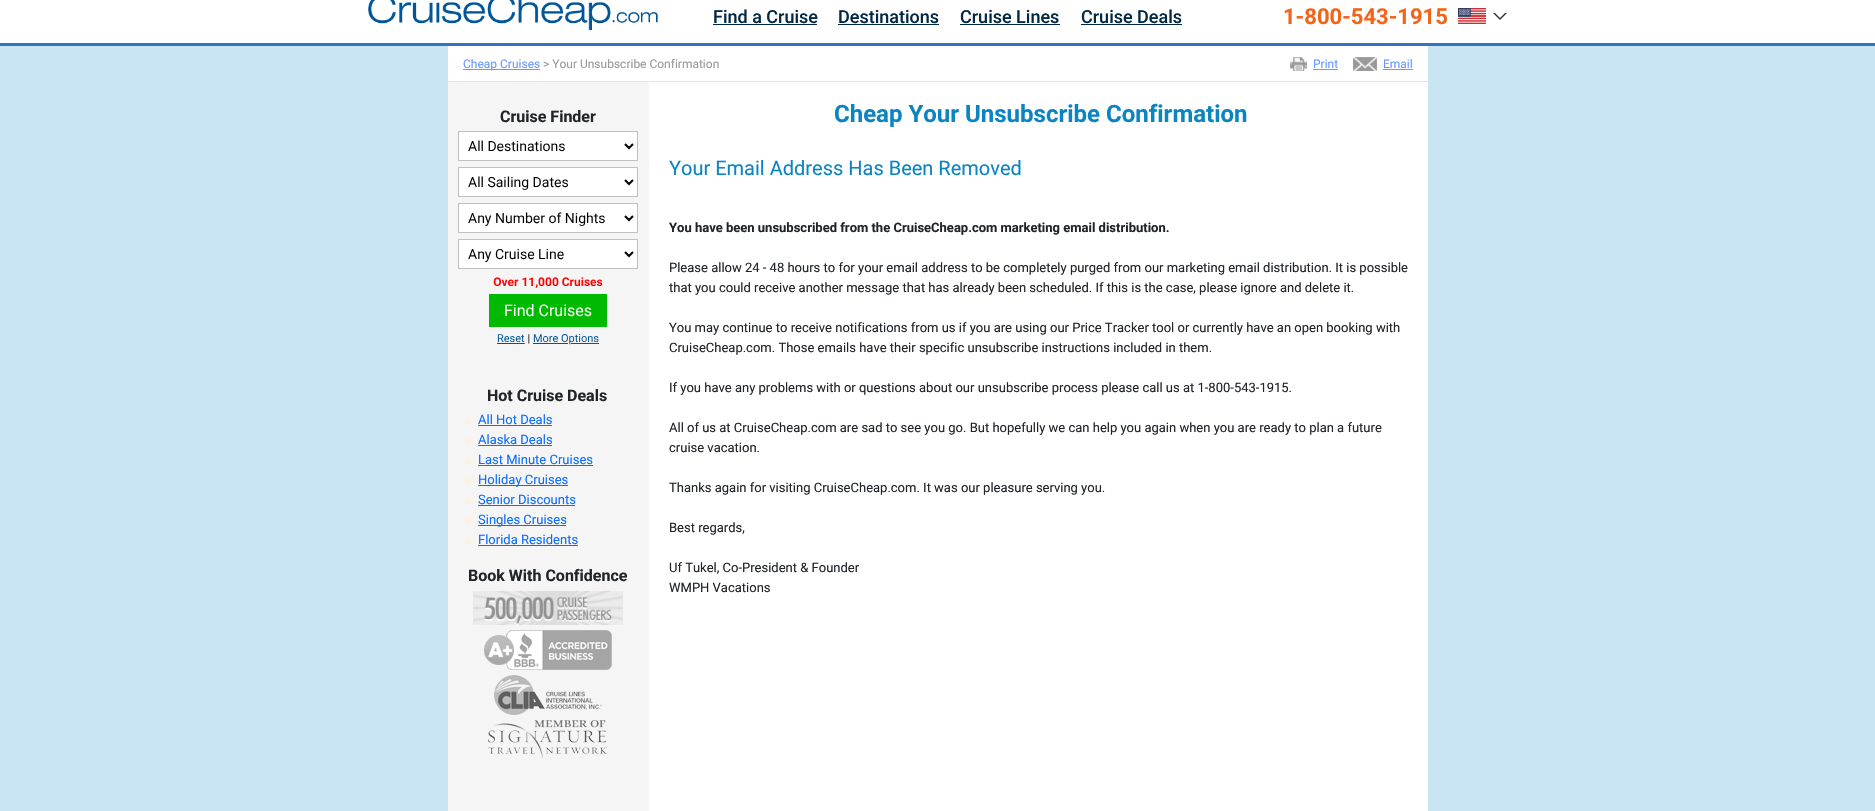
void draw(SkCanvas* canvas) {
	SkPaint paint;
	paint.setAntiAlias(true);
	auto svgPath = [&](const char* data, bool evenOdd = false) {
		SkPath result = *SkParsePath::FromSVGString(data);
		if (evenOdd) result.setFillType(SkPathFillType::kEvenOdd);
		return result;
	};
	canvas->clear(0xffc9e4f2);
	paint.setColor(0xffffffff);
	canvas->drawRect(SkRect::MakeXYWH(0, 0, 1875, 43), paint);
	paint.setColor(0xff3175c0);
	canvas->drawRect(SkRect::MakeXYWH(0, 43, 1875, 3), paint);
	canvas->drawImageRect(SkImages::DeferredFromEncodedData(SkData::MakeFromFileName("img1.png")), SkRect::MakeXYWH(368, 0, 290, 30), SkSamplingOptions());
	SkFont f1(fontMgr->matchFamilyStyle("Roboto", SkFontStyle(500, SkFontStyle::kNormal_Width, SkFontStyle::kUpright_Slant)), 18);
	f1.setSubpixel(true);
	paint.setColor(0xff022944);
	canvas->drawString("Find a Cruise", 713, 23, f1, paint);
	canvas->drawRect(SkRect::MakeXYWH(713, 24, 104, 1), paint);
	canvas->drawString("Destinations", 838, 23, f1, paint);
	canvas->drawRect(SkRect::MakeXYWH(838, 24, 101, 1), paint);
	canvas->drawString("Cruise Lines", 960, 23, f1, paint);
	canvas->drawRect(SkRect::MakeXYWH(960, 24, 100, 1), paint);
	canvas->drawString("Cruise Deals", 1081, 23, f1, paint);
	canvas->drawRect(SkRect::MakeXYWH(1081, 24, 101, 1), paint);
	SkFont f2(fontMgr->matchFamilyStyle("Roboto", SkFontStyle::Bold()), 22);
	f2.setSubpixel(true);
	paint.setColor(0xfff26419);
	canvas->drawString("1-800-543-1915", 1283, 24, f2, paint);
	canvas->drawImageRect(SkImages::DeferredFromEncodedData(SkData::MakeFromFileName("img2.png")), SkRect::MakeXYWH(1458, 8, 28, 16), SkSamplingOptions());
	paint.setColor(0xff333333);
	canvas->drawPath(svgPath("M1493 13H1507L1500 20Z"), paint);
	paint.setColor(0xffffffff);
	canvas->drawPath(svgPath("M1495 13H1505L1500 18Z"), paint);
	canvas->drawRect(SkRect::MakeXYWH(649, 82, 779, 729), paint);
	paint.setColor(0xfff5f5f5);
	canvas->drawRect(SkRect::MakeXYWH(448, 82, 201, 729), paint);
	paint.setColor(0xffffffff);
	canvas->drawRect(SkRect::MakeXYWH(448, 46, 980, 35), paint);
	paint.setColor(0xffe4e6e7);
	canvas->drawRect(SkRect::MakeXYWH(448, 81, 980, 1), paint);
	paint.setColor(0xff6699ff);
	canvas->drawRect(SkRect::MakeXYWH(463, 69, 77, 1), paint);
	SkFont f3(fontMgr->matchFamilyStyle("Roboto", SkFontStyle::Normal()), 12);
	f3.setSubpixel(true);
	canvas->drawString("Cheap Cruises", 463, 68, f3, paint);
	paint.setColor(0xff999999);
	canvas->drawString("> Your Unsubscribe Confirmation", 543, 68, f3, paint);
	canvas->drawImageRect(SkImages::DeferredFromEncodedData(SkData::MakeFromFileName("img3.png")), SkRect::MakeXYWH(1290, 57, 17, 14), SkSamplingOptions());
	paint.setColor(0xff6699ff);
	canvas->drawString("Print", 1313, 68, f3, paint);
	canvas->drawRect(SkRect::MakeXYWH(1313, 69, 25, 1), paint);
	canvas->drawImageRect(SkImages::DeferredFromEncodedData(SkData::MakeFromFileName("img4.png")), SkRect::MakeXYWH(1353, 57, 24, 14), SkSamplingOptions());
	canvas->drawString("Email", 1383, 68, f3, paint);
	canvas->drawRect(SkRect::MakeXYWH(1383, 69, 30, 1), paint);
	SkFont f4(fontMgr->matchFamilyStyle("Roboto", SkFontStyle::Bold()), 16);
	f4.setSubpixel(true);
	paint.setColor(0xff212529);
	canvas->drawString("Cruise Finder", 500, 122, f4, paint);
	canvas->drawImageRect(SkImages::DeferredFromEncodedData(SkData::MakeFromFileName("img5.png")), SkRect::MakeXYWH(458, 131, 180, 214), SkSamplingOptions());
	canvas->drawString("Hot Cruise Deals", 487, 401, f4, paint);
	paint.setColor(0xfffef1de);
	canvas->drawRect(SkRect::MakeXYWH(465, 418, 6, 6), paint);
	SkFont f5(fontMgr->matchFamilyStyle("Roboto", SkFontStyle::Normal()), 13);
	f5.setSubpixel(true);
	paint.setColor(0xff0d6efd);
	canvas->drawString("All Hot Deals", 478, 424, f5, paint);
	canvas->drawRect(SkRect::MakeXYWH(478, 425, 74, 1), paint);
	paint.setColor(0xfffef1de);
	canvas->drawRect(SkRect::MakeXYWH(465, 438, 6, 6), paint);
	paint.setColor(0xff0d6efd);
	canvas->drawString("Alaska Deals", 478, 444, f5, paint);
	canvas->drawRect(SkRect::MakeXYWH(478, 445, 74, 1), paint);
	paint.setColor(0xfffef1de);
	canvas->drawRect(SkRect::MakeXYWH(465, 458, 6, 6), paint);
	paint.setColor(0xff0d6efd);
	canvas->drawString("Last Minute Cruises", 478, 464, f5, paint);
	canvas->drawRect(SkRect::MakeXYWH(478, 465, 115, 1), paint);
	paint.setColor(0xfffef1de);
	canvas->drawRect(SkRect::MakeXYWH(465, 478, 6, 6), paint);
	paint.setColor(0xff0d6efd);
	canvas->drawRect(SkRect::MakeXYWH(478, 485, 90, 1), paint);
	canvas->drawString("Holiday Cruises", 478, 484, f5, paint);
	paint.setColor(0xfffef1de);
	canvas->drawRect(SkRect::MakeXYWH(465, 498, 6, 6), paint);
	paint.setColor(0xff0d6efd);
	canvas->drawString("Senior Discounts", 478, 504, f5, paint);
	canvas->drawRect(SkRect::MakeXYWH(478, 505, 97, 1), paint);
	paint.setColor(0xfffef1de);
	canvas->drawRect(SkRect::MakeXYWH(465, 518, 6, 6), paint);
	paint.setColor(0xff0d6efd);
	canvas->drawRect(SkRect::MakeXYWH(478, 525, 88, 1), paint);
	canvas->drawString("Singles Cruises", 478, 524, f5, paint);
	paint.setColor(0xfffef1de);
	canvas->drawRect(SkRect::MakeXYWH(465, 538, 6, 6), paint);
	paint.setColor(0xff0d6efd);
	canvas->drawString("Florida Residents", 478, 544, f5, paint);
	canvas->drawRect(SkRect::MakeXYWH(478, 545, 100, 1), paint);
	paint.setColor(0xff212529);
	canvas->drawString("Book With Confidence", 468, 581, f4, paint);
	canvas->drawImageRect(SkImages::DeferredFromEncodedData(SkData::MakeFromFileName("img6.png")), SkRect::MakeXYWH(473, 591, 150, 34), SkSamplingOptions());
	canvas->drawImageRect(SkImages::DeferredFromEncodedData(SkData::MakeFromFileName("img7.png")), SkRect::MakeXYWH(484, 630, 128, 40), SkSamplingOptions());
	canvas->drawImageRect(SkImages::DeferredFromEncodedData(SkData::MakeFromFileName("img8.png")), SkRect::MakeXYWH(494, 675, 108, 40), SkSamplingOptions());
	canvas->drawImageRect(SkImages::DeferredFromEncodedData(SkData::MakeFromFileName("img9.png")), SkRect::MakeXYWH(488, 720, 119, 39), SkSamplingOptions());
	SkFont f6(fontMgr->matchFamilyStyle("Roboto", SkFontStyle::Bold()), 24);
	f6.setSubpixel(true);
	paint.setColor(0xff0a85c1);
	canvas->drawString("Cheap Your Unsubscribe Confirmation", 834, 122, f6, paint);
	SkFont f7(fontMgr->matchFamilyStyle("Roboto", SkFontStyle::Normal()), 20);
	f7.setSubpixel(true);
	canvas->drawString("Your Email Address Has Been Removed", 669, 175, f7, paint);
	SkFont f8(fontMgr->matchFamilyStyle("Roboto", SkFontStyle::Bold()), 13);
	f8.setSubpixel(true);
	paint.setColor(0xff212529);
	canvas->drawString("You have been unsubscribed from the CruiseCheap.com marketing email distribution.", 669, 232, f8, paint);
	canvas->drawString("Please allow 24 - 48 hours to for your email address to be completely purged from our marketing email distribution. It is possible", 669, 272, f5, paint);
	canvas->drawString("that you could receive another message that has already been scheduled. If this is the case, please ignore and delete it.", 669, 292, f5, paint);
	canvas->drawString("You may continue to receive notifications from us if you are using our Price Tracker tool or currently have an open booking with", 669, 332, f5, paint);
	canvas->drawString("CruiseCheap.com. Those emails have their specific unsubscribe instructions included in them.", 669, 352, f5, paint);
	canvas->drawString("If you have any problems with or questions about our unsubscribe process please call us at 1-800-543-1915.", 669, 392, f5, paint);
	canvas->drawString("All of us at CruiseCheap.com are sad to see you go. But hopefully we can help you again when you are ready to plan a future", 669, 432, f5, paint);
	canvas->drawString("cruise vacation.", 669, 452, f5, paint);
	canvas->drawString("Thanks again for visiting CruiseCheap.com. It was our pleasure serving you.", 669, 492, f5, paint);
	canvas->drawString("Best regards,", 669, 532, f5, paint);
	canvas->drawString("Uf Tukel, Co-President & Founder", 669, 572, f5, paint);
	canvas->drawString("WMPH Vacations", 669, 592, f5, paint);
}
